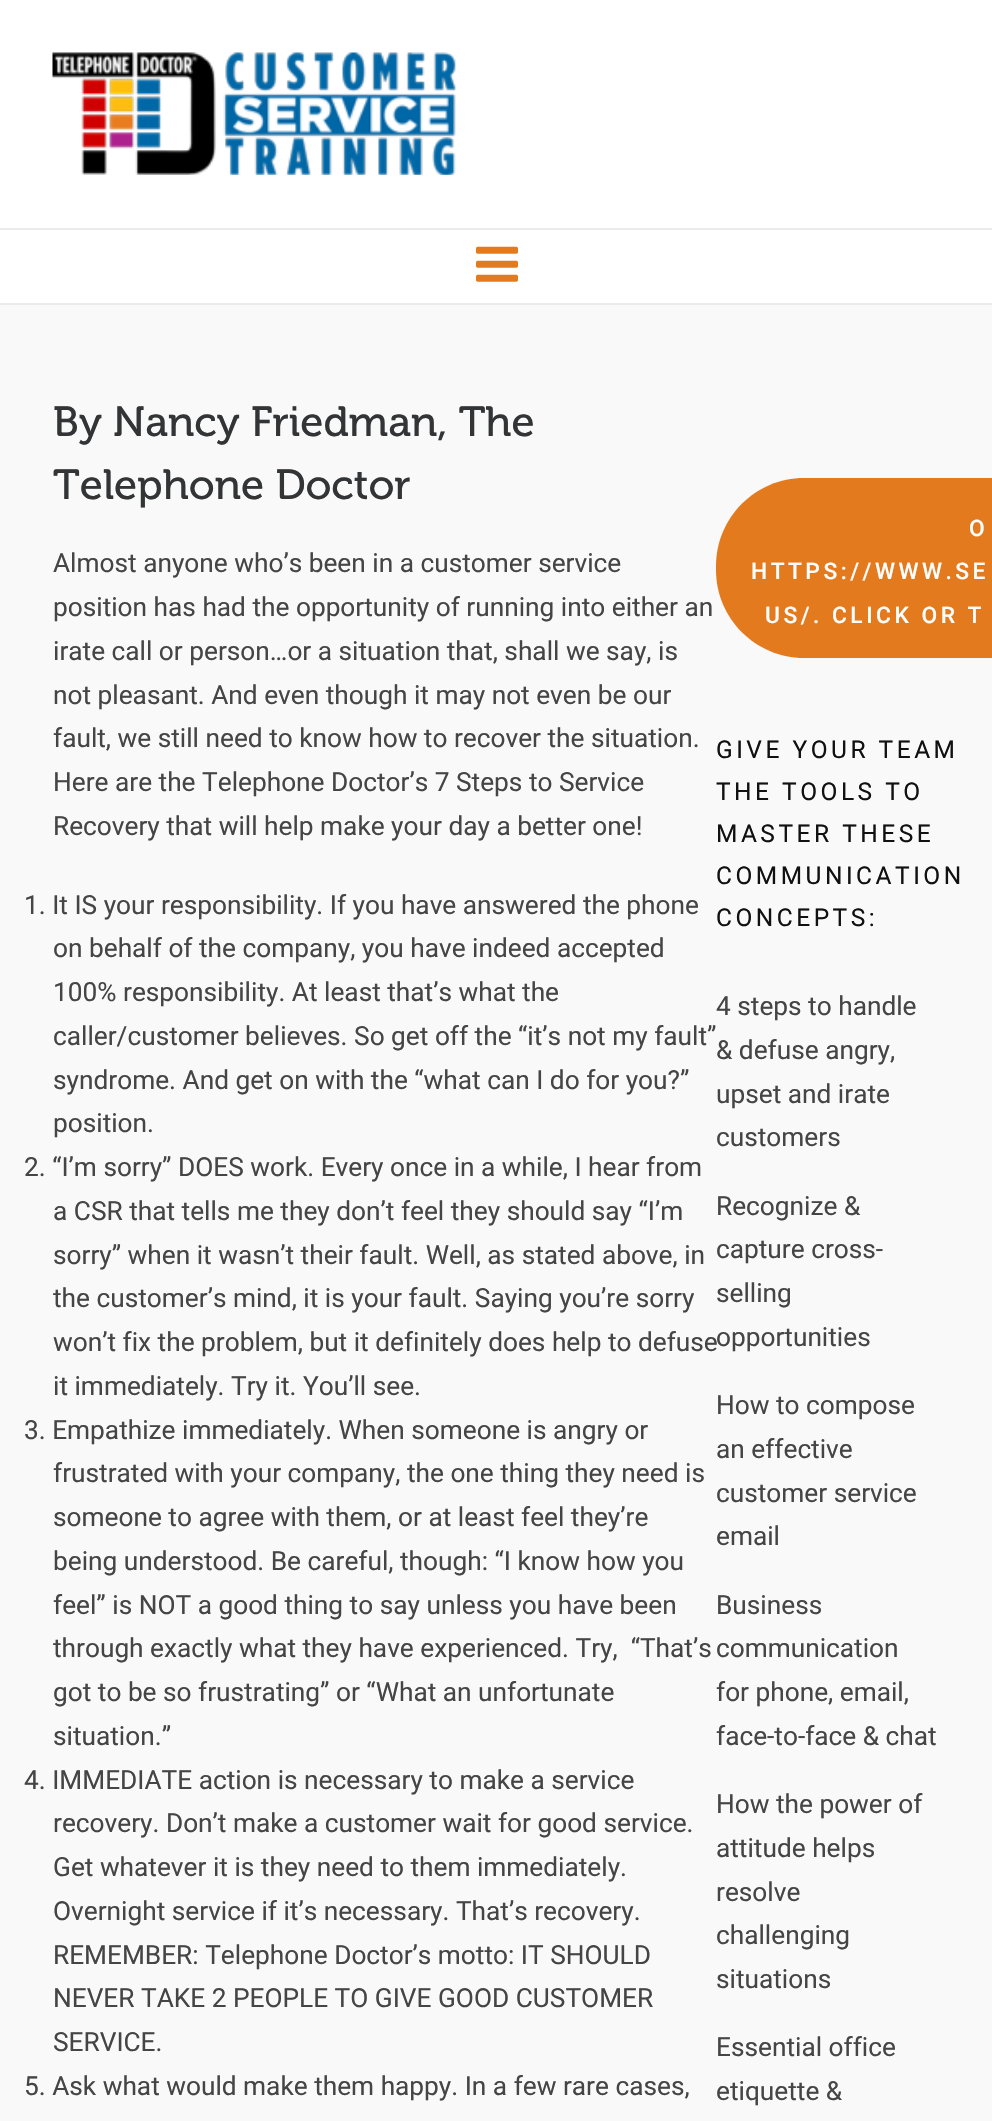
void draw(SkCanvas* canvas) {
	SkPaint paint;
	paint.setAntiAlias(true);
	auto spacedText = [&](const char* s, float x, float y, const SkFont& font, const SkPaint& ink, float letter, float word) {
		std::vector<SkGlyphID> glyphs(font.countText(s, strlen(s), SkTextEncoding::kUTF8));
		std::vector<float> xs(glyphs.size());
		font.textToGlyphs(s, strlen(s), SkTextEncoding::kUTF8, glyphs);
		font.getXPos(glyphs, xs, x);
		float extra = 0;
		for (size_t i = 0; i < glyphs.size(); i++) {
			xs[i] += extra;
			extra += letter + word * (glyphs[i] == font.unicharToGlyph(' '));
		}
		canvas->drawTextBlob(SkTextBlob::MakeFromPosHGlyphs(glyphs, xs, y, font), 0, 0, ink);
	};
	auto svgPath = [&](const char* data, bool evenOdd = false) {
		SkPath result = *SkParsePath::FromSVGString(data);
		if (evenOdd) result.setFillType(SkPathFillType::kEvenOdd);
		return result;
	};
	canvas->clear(0xfff9f9f9);
	paint.setColor(0xffffffff);
	canvas->drawRect(SkRect::MakeXYWH(0, 0, 992, 303), paint);
	paint.setColor(0xffebebeb);
	canvas->drawRect(SkRect::MakeXYWH(0, 303, 992, 2), paint);
	canvas->drawImageRect(SkImages::DeferredFromEncodedData(SkData::MakeFromFileName("img1.png")), SkRect::MakeXYWH(52, 52, 404, 123), SkSamplingOptions());
	canvas->drawRect(SkRect::MakeXYWH(0, 228, 992, 2), paint);
	canvas->drawImageRect(SkImages::DeferredFromEncodedData(SkData::MakeFromFileName("img2.png")), SkRect::MakeXYWH(476, 246, 42, 36), SkSamplingOptions());
	SkFont f1(fontMgr->matchFamilyStyle("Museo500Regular", SkFontStyle::Normal()), 42);
	f1.setSubpixel(true);
	paint.setColor(0xff323436);
	canvas->drawString("By Nancy Friedman, The", 53, 436, f1, paint);
	canvas->drawString("Telephone Doctor", 53, 499, f1, paint);
	SkFont f2(fontMgr->matchFamilyStyle("Roboto", SkFontStyle::Normal()), 26.25);
	f2.setSubpixel(true);
	paint.setColor(0xff454545);
	canvas->drawString("Almost anyone who’s been in a customer service", 53, 572, f2, paint);
	canvas->drawString("position has had the opportunity of running into either an", 53, 616, f2, paint);
	canvas->drawString("irate call or person…or a situation that, shall we say, is", 53, 660, f2, paint);
	canvas->drawString("not pleasant. And even though it may not even be our", 53, 704, f2, paint);
	canvas->drawString("fault, we still need to know how to recover the situation.", 53, 747, f2, paint);
	canvas->drawString("Here are the Telephone Doctor’s 7 Steps to Service", 53, 791, f2, paint);
	canvas->drawString("Recovery that will help make your day a better one!", 53, 835, f2, paint);
	canvas->drawString("1. It IS your responsibility. If you have answered the phone", 24, 914, f2, paint);
	canvas->drawString("on behalf of the company, you have indeed accepted", 53, 957, f2, paint);
	canvas->drawString("100% responsibility. At least that’s what the", 53, 1001, f2, paint);
	canvas->drawString("caller/customer believes. So get off the “it’s not my fault”", 53, 1045, f2, paint);
	canvas->drawString("syndrome. And get on with the “what can I do for you?”", 53, 1089, f2, paint);
	canvas->drawString("position.", 53, 1132, f2, paint);
	canvas->drawString("2. “I’m sorry” DOES work. Every once in a while, I hear from", 24, 1176, f2, paint);
	canvas->drawString("a CSR that tells me they don’t feel they should say “I’m", 53, 1220, f2, paint);
	canvas->drawString("sorry” when it wasn’t their fault. Well, as stated above, in", 53, 1264, f2, paint);
	canvas->drawString("the customer’s mind, it is your fault. Saying you’re sorry", 53, 1307, f2, paint);
	canvas->drawString("won’t fix the problem, but it definitely does help to defuse", 53, 1351, f2, paint);
	canvas->drawString("it immediately. Try it. You’ll see.", 53, 1395, f2, paint);
	canvas->drawString("3. Empathize immediately. When someone is angry or", 24, 1439, f2, paint);
	canvas->drawString("frustrated with your company, the one thing they need is", 53, 1482, f2, paint);
	canvas->drawString("someone to agree with them, or at least feel they’re", 53, 1526, f2, paint);
	canvas->drawString("being understood. Be careful, though: “I know how you", 53, 1570, f2, paint);
	canvas->drawString("feel” is NOT a good thing to say unless you have been", 53, 1614, f2, paint);
	canvas->drawString("through exactly what they have experienced. Try,  “That’s", 53, 1657, f2, paint);
	canvas->drawString("got to be so frustrating” or “What an unfortunate", 53, 1701, f2, paint);
	canvas->drawString("situation.”", 53, 1745, f2, paint);
	canvas->drawString("4. IMMEDIATE action is necessary to make a service", 24, 1789, f2, paint);
	canvas->drawString("recovery. Don’t make a customer wait for good service.", 53, 1832, f2, paint);
	canvas->drawString("Get whatever it is they need to them immediately.", 53, 1876, f2, paint);
	canvas->drawString("Overnight service if it’s necessary. That’s recovery.", 53, 1920, f2, paint);
	canvas->drawString("REMEMBER: Telephone Doctor’s motto: IT SHOULD", 53, 1964, f2, paint);
	canvas->drawString("NEVER TAKE 2 PEOPLE TO GIVE GOOD CUSTOMER", 53, 2007, f2, paint);
	canvas->drawString("SERVICE.", 53, 2051, f2, paint);
	canvas->drawString("5. Ask what would make them happy. In a few rare cases,", 24, 2095, f2, paint);
	paint.setColor(0xffe47a1e);
	canvas->drawPath(svgPath("M804 478H992V658H804C755.5 658 716 618.5 716 570V566C716 517.5 755.5 478 804 478Z"), paint);
	SkFont f3(fontMgr->matchFamilyStyle("Roboto", SkFontStyle(500, SkFontStyle::kNormal_Width, SkFontStyle::kUpright_Slant)), 22.75);
	f3.setSubpixel(true);
	paint.setColor(0xffffffff);
	spacedText("O", 969, 536, f3, paint, 3.5, 0);
	spacedText("HTTPS://WWW.SE", 751, 579, f3, paint, 3.5, 0);
	spacedText("US/. CLICK OR T", 765, 623, f3, paint, 3.5, 0);
	SkFont f4(fontMgr->matchFamilyStyle("Roboto", SkFontStyle::Normal()), 24.5);
	f4.setSubpixel(true);
	paint.setColor(0xff111111);
	spacedText("GIVE YOUR TEAM", 716, 758, f4, paint, 3.5, 0);
	spacedText("THE TOOLS TO", 716, 800, f4, paint, 3.5, 0);
	spacedText("MASTER THESE", 716, 842, f4, paint, 3.5, 0);
	spacedText("COMMUNICATION", 716, 884, f4, paint, 3.5, 0);
	spacedText("CONCEPTS:", 716, 926, f4, paint, 3.5, 0);
	paint.setColor(0xff454545);
	canvas->drawString("4 steps to handle", 716, 1015, f2, paint);
	canvas->drawString("& defuse angry,", 716, 1059, f2, paint);
	canvas->drawString("upset and irate", 716, 1103, f2, paint);
	canvas->drawString("customers", 716, 1146, f2, paint);
	canvas->drawString("Recognize &", 716, 1215, f2, paint);
	canvas->drawString("capture cross-", 716, 1258, f2, paint);
	canvas->drawString("selling", 716, 1302, f2, paint);
	canvas->drawString("opportunities", 716, 1346, f2, paint);
	canvas->drawString("How to compose", 716, 1414, f2, paint);
	canvas->drawString("an effective", 716, 1458, f2, paint);
	canvas->drawString("customer service", 716, 1502, f2, paint);
	canvas->drawString("email", 716, 1545, f2, paint);
	canvas->drawString("Business", 716, 1614, f2, paint);
	canvas->drawString("communication", 716, 1657, f2, paint);
	canvas->drawString("for phone, email,", 716, 1701, f2, paint);
	canvas->drawString("face-to-face & chat", 716, 1745, f2, paint);
	canvas->drawString("How the power of", 716, 1813, f2, paint);
	canvas->drawString("attitude helps", 716, 1857, f2, paint);
	canvas->drawString("resolve", 716, 1901, f2, paint);
	canvas->drawString("challenging", 716, 1944, f2, paint);
	canvas->drawString("situations", 716, 1988, f2, paint);
	canvas->drawString("Essential office", 716, 2056, f2, paint);
	canvas->drawString("etiquette &", 716, 2100, f2, paint);
}
